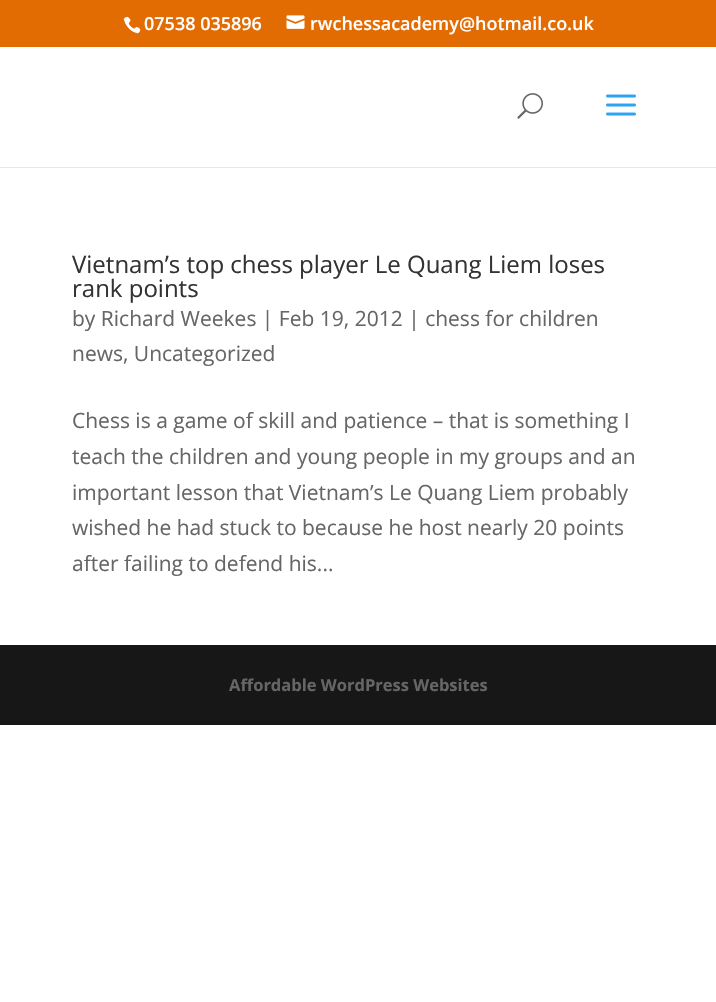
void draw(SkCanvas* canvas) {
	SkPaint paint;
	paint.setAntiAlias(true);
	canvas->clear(0xffffffff);
	paint.setColor(0xffe26b02);
	canvas->drawRect(SkRect::MakeXYWH(0, 0, 716, 47), paint);
	canvas->drawImageRect(SkImages::DeferredFromEncodedData(SkData::MakeFromFileName("img1.png")), SkRect::MakeXYWH(123, 16, 18, 18), SkSamplingOptions());
	SkFont f1(fontMgr->matchFamilyStyle("Open Sans", SkFontStyle(600, SkFontStyle::kNormal_Width, SkFontStyle::kUpright_Slant)), 18);
	f1.setSubpixel(true);
	paint.setColor(0xffffffff);
	canvas->drawString("07538 035896", 144, 30, f1, paint);
	canvas->drawImageRect(SkImages::DeferredFromEncodedData(SkData::MakeFromFileName("img2.png")), SkRect::MakeXYWH(286, 15, 19, 14), SkSamplingOptions());
	canvas->drawString("rwchessacademy@hotmail.co.uk", 310, 30, f1, paint);
	paint.setColor(0xffe6e6e6);
	canvas->drawRect(SkRect::MakeXYWH(0, 167, 716, 1), paint);
	canvas->drawImageRect(SkImages::DeferredFromEncodedData(SkData::MakeFromFileName("img3.png")), SkRect::MakeXYWH(517, 93, 26, 26), SkSamplingOptions());
	canvas->drawImageRect(SkImages::DeferredFromEncodedData(SkData::MakeFromFileName("img4.png")), SkRect::MakeXYWH(606, 94, 30, 22), SkSamplingOptions());
	SkFont f2(fontMgr->matchFamilyStyle("Open Sans", SkFontStyle::Normal()), 24);
	f2.setSubpixel(true);
	paint.setColor(0xff333333);
	canvas->drawString("Vietnam’s top chess player Le Quang Liem loses", 72, 273, f2, paint);
	canvas->drawString("rank points", 72, 297, f2, paint);
	SkFont f3(fontMgr->matchFamilyStyle("Open Sans", SkFontStyle::Normal()), 21);
	f3.setSubpixel(true);
	paint.setColor(0xff666666);
	canvas->drawString("by Richard Weekes | Feb 19, 2012 | chess for children", 72, 326, f3, paint);
	canvas->drawString("news, Uncategorized", 72, 361, f3, paint);
	canvas->drawString("Chess is a game of skill and patience – that is something I", 72, 428, f3, paint);
	canvas->drawString("teach the children and young people in my groups and an", 72, 464, f3, paint);
	canvas->drawString("important lesson that Vietnam’s Le Quang Liem probably", 72, 500, f3, paint);
	canvas->drawString("wished he had stuck to because he host nearly 20 points", 72, 535, f3, paint);
	canvas->drawString("after failing to defend his...", 72, 571, f3, paint);
	paint.setColor(0xff171717);
	canvas->drawRect(SkRect::MakeXYWH(0, 645, 716, 80), paint);
	SkFont f4(fontMgr->matchFamilyStyle("Open Sans", SkFontStyle::Bold()), 16.5);
	f4.setSubpixel(true);
	paint.setColor(0xff666666);
	canvas->drawString("Affordable WordPress Websites", 229, 691, f4, paint);
}
